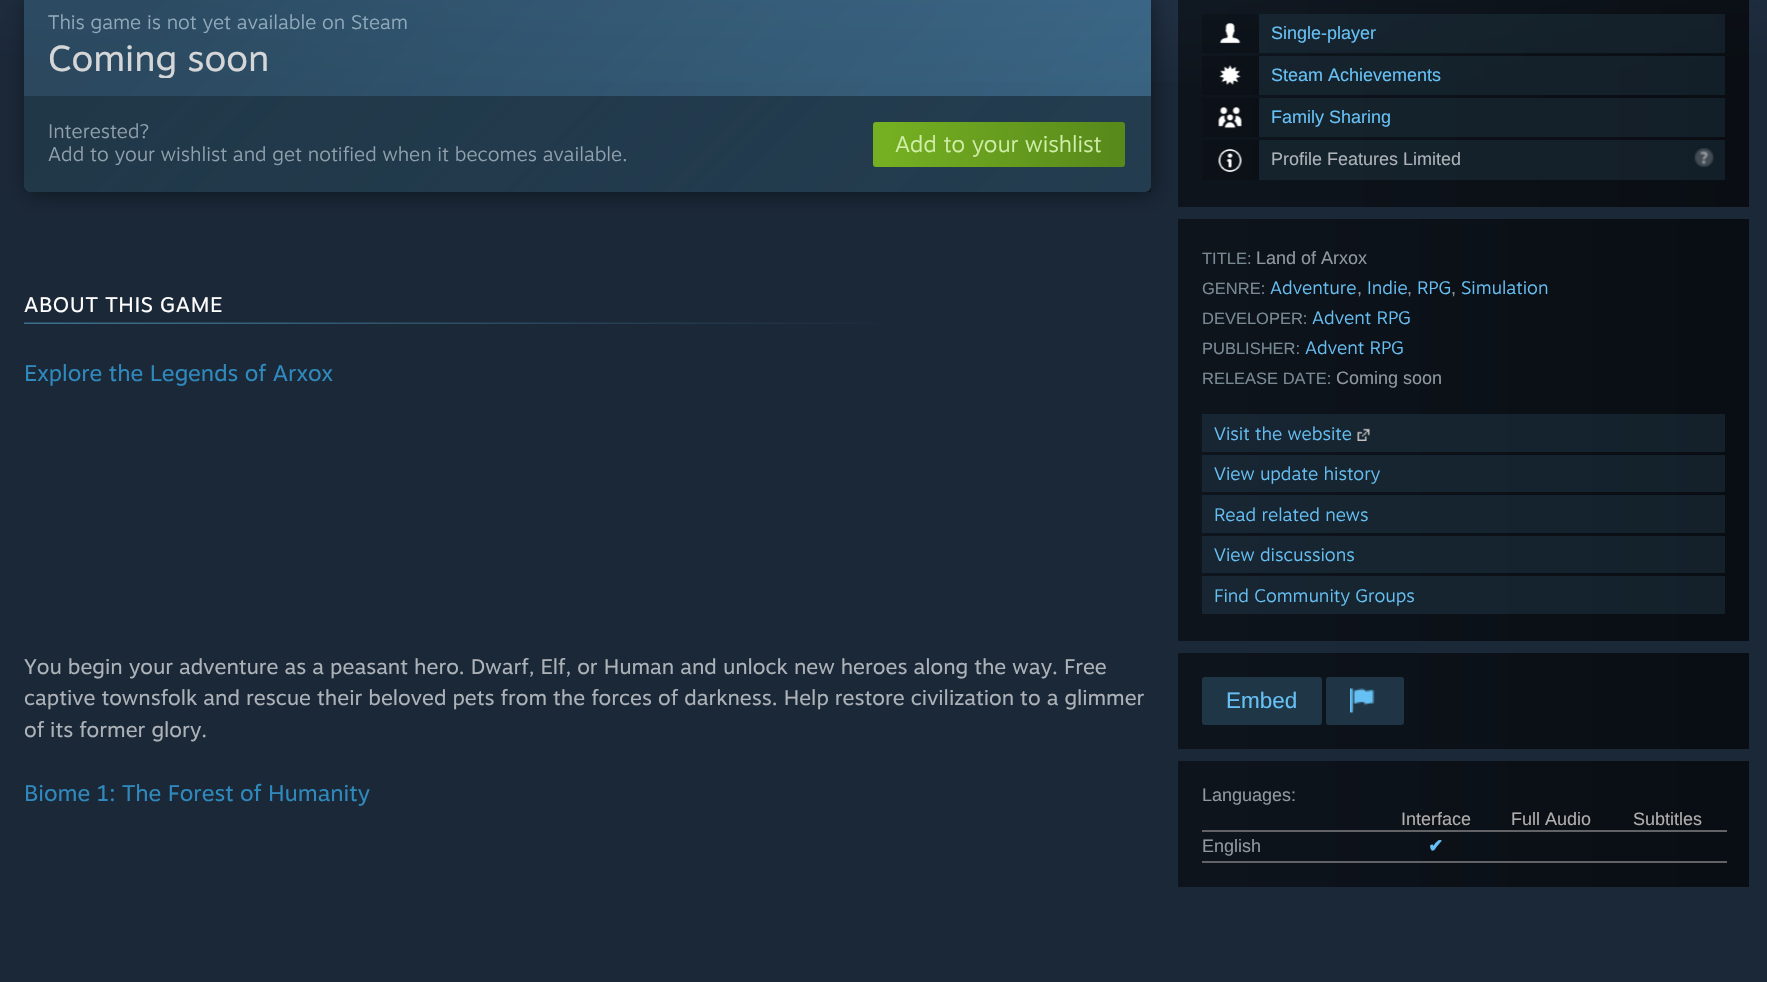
void draw(SkCanvas* canvas) {
	SkPaint paint;
	paint.setAntiAlias(true);
	auto spacedText = [&](const char* s, float x, float y, const SkFont& font, const SkPaint& ink, float letter, float word) {
		std::vector<SkGlyphID> glyphs(font.countText(s, strlen(s), SkTextEncoding::kUTF8));
		std::vector<float> xs(glyphs.size());
		font.textToGlyphs(s, strlen(s), SkTextEncoding::kUTF8, glyphs);
		font.getXPos(glyphs, xs, x);
		float extra = 0;
		for (size_t i = 0; i < glyphs.size(); i++) {
			xs[i] += extra;
			extra += letter + word * (glyphs[i] == font.unicharToGlyph(' '));
		}
		canvas->drawTextBlob(SkTextBlob::MakeFromPosHGlyphs(glyphs, xs, y, font), 0, 0, ink);
	};
	auto svgPath = [&](const char* data, bool evenOdd = false) {
		SkPath result = *SkParsePath::FromSVGString(data);
		if (evenOdd) result.setFillType(SkPathFillType::kEvenOdd);
		return result;
	};
	canvas->clear(0xff1b2838);
	{
		const SkColor colors[] = {0xff283c53, 0xff1b2838};
		const float stops[] = {0, 1};
		SkMatrix m = SkMatrix::Translate(884, -127).preScale(1500, 230);
		paint.setShader(SkGradientShader::MakeRadial({0, 0}, 1, colors, stops, 2, SkTileMode::kClamp, 0, &m));
		paint.setAlpha(255);
	}
	canvas->drawRect(SkRect::MakeXYWH(0, 0, 1767, 82), paint);
	canvas->save();
	canvas->clipPath(svgPath("M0 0H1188V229H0ZM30-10H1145C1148.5-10 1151-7.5 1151-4V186C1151 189.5 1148.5 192 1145 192H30C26.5 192 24 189.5 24 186V-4C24-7.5 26.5-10 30-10Z", true), true);
	paint.setShader(nullptr);
	paint.setColor(0x66000000);
	paint.setMaskFilter(SkMaskFilter::MakeBlur(kNormal_SkBlurStyle, 11));
	canvas->drawRoundRect(SkRect::MakeXYWH(27, -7, 1127, 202), 6, 6, paint);
	paint.setMaskFilter(nullptr);
	canvas->restore();
	{
		const SkColor colors[] = {0x66407898, 0x6666c0f4};
		const float stops[] = {0.1, 1};
		const SkPoint ends[] = {{255, -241}, {920, 423}};
		paint.setShader(SkGradientShader::MakeLinear(ends, colors, stops, 2, SkTileMode::kClamp));
		paint.setAlpha(255);
	}
	canvas->drawRoundRect(SkRect::MakeXYWH(24, -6, 1127, 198), 6, 6, paint);
	SkFont f1(fontMgr->matchFamilyStyle("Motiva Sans", SkFontStyle(300, SkFontStyle::kNormal_Width, SkFontStyle::kUpright_Slant)), 19.5);
	f1.setSubpixel(true);
	paint.setShader(nullptr);
	paint.setColor(0xff90aabb);
	canvas->drawString("This game is not yet available on Steam", 48, 29, f1, paint);
	canvas->save();
	canvas->clipRect(SkRect::MakeXYWH(48, 36, 1079, 42));
	SkFont f2(fontMgr->matchFamilyStyle("Motiva Sans", SkFontStyle::Normal()), 36);
	f2.setSubpixel(true);
	paint.setColor(0xffd5d6d8);
	canvas->drawString("Coming soon", 48, 71, f2, paint);
	canvas->restore();
	{
		const SkColor colors[] = {0x660f1c24, 0x66000000};
		const float stops[] = {0.1, 1};
		const SkPoint ends[] = {{282, -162}, {893, 450}};
		paint.setShader(SkGradientShader::MakeLinear(ends, colors, stops, 2, SkTileMode::kClamp));
		paint.setAlpha(255);
	}
	canvas->drawRect(SkRect::MakeXYWH(24, 96, 1127, 96), paint);
	paint.setShader(nullptr);
	paint.setColor(0xff90a0ad);
	canvas->drawString("Interested?", 48, 138, f1, paint);
	canvas->drawString("Add to your wishlist and get notified when it becomes available.", 48, 161, f1, paint);
	{
		const SkColor colors[] = {0xff75b022, 0xff588a1b};
		const float stops[] = {0.05, 0.95};
		const SkPoint ends[] = {{873, 144}, {1125, 144}};
		paint.setShader(SkGradientShader::MakeLinear(ends, colors, stops, 2, SkTileMode::kClamp));
		paint.setAlpha(255);
	}
	canvas->drawRoundRect(SkRect::MakeXYWH(873, 122, 252, 45), 3, 3, paint);
	SkFont f3(fontMgr->matchFamilyStyle("Motiva Sans", SkFontStyle(300, SkFontStyle::kNormal_Width, SkFontStyle::kUpright_Slant)), 22.5);
	f3.setSubpixel(true);
	paint.setShader(nullptr);
	paint.setColor(0xffd2efa9);
	canvas->drawString("Add to your wishlist", 895, 152, f3, paint);
	canvas->drawImageRect(SkImages::DeferredFromEncodedData(SkData::MakeFromFileName("img1.png")), SkRect::MakeXYWH(24, 322, 853, 2), SkSamplingOptions());
	SkFont f4(fontMgr->matchFamilyStyle("Motiva Sans", SkFontStyle::Normal()), 21);
	f4.setSubpixel(true);
	paint.setColor(0xffffffff);
	spacedText("ABOUT THIS GAME", 24, 312, f4, paint, 0.6, 0);
	SkFont f5(fontMgr->matchFamilyStyle("Motiva Sans", SkFontStyle::Normal()), 22.5);
	f5.setSubpixel(true);
	paint.setColor(0xff2f89bc);
	canvas->drawString("Explore the Legends of Arxox", 24, 381, f5, paint);
	paint.setColor(0xffacb2b8);
	canvas->drawString("You begin your adventure as a peasant hero. Dwarf, Elf, or Human and unlock new heroes along the way. Free", 24, 674, f4, paint);
	canvas->drawString("captive townsfolk and rescue their beloved pets from the forces of darkness. Help restore civilization to a glimmer", 24, 705, f4, paint);
	canvas->drawString("of its former glory.", 24, 737, f4, paint);
	paint.setColor(0xff2f89bc);
	canvas->drawString("Biome 1: The Forest of Humanity", 24, 801, f5, paint);
	{
		const SkColor colors[] = {0x80000000, 0xa6000000};
		const float stops[] = {0.05, 0.95};
		const SkPoint ends[] = {{1178, 98}, {1749, 98}};
		paint.setShader(SkGradientShader::MakeLinear(ends, colors, stops, 2, SkTileMode::kClamp));
		paint.setAlpha(255);
	}
	canvas->drawRect(SkRect::MakeXYWH(1178, 0, 571, 207), paint);
	paint.setShader(nullptr);
	paint.setColor(0x33000000);
	canvas->drawRect(SkRect::MakeXYWH(1202, 14, 523, 39), paint);
	canvas->drawImageRect(SkImages::DeferredFromEncodedData(SkData::MakeFromFileName("img2.png")), SkRect::MakeXYWH(1219, 23, 22, 21), SkSamplingOptions());
	paint.setColor(0x1a67c1f5);
	canvas->drawRect(SkRect::MakeXYWH(1259, 14, 466, 39), paint);
	SkFont f6(fontMgr->matchFamilyStyle("Liberation Sans", SkFontStyle::Normal()), 18);
	f6.setSubpixel(true);
	paint.setColor(0xff66c0f4);
	canvas->drawString("Single-player", 1271, 39, f6, paint);
	paint.setColor(0x33000000);
	canvas->drawRect(SkRect::MakeXYWH(1202, 56, 523, 39), paint);
	canvas->drawImageRect(SkImages::DeferredFromEncodedData(SkData::MakeFromFileName("img3.png")), SkRect::MakeXYWH(1219, 65, 22, 20), SkSamplingOptions());
	paint.setColor(0x1a67c1f5);
	canvas->drawRect(SkRect::MakeXYWH(1259, 56, 466, 39), paint);
	paint.setColor(0xff66c0f4);
	canvas->drawString("Steam Achievements", 1271, 81, f6, paint);
	paint.setColor(0x33000000);
	canvas->drawRect(SkRect::MakeXYWH(1202, 98, 523, 39), paint);
	canvas->drawImageRect(SkImages::DeferredFromEncodedData(SkData::MakeFromFileName("img4.png")), SkRect::MakeXYWH(1218, 107, 24, 22), SkSamplingOptions());
	paint.setColor(0x1a67c1f5);
	canvas->drawRect(SkRect::MakeXYWH(1259, 98, 466, 39), paint);
	paint.setColor(0xff66c0f4);
	canvas->drawString("Family Sharing", 1271, 123, f6, paint);
	paint.setColor(0x33000000);
	canvas->drawRect(SkRect::MakeXYWH(1202, 140, 523, 40), paint);
	canvas->drawImageRect(SkImages::DeferredFromEncodedData(SkData::MakeFromFileName("img5.png")), SkRect::MakeXYWH(1218, 149, 24, 23), SkSamplingOptions());
	paint.setColor(0x1a67c1f5);
	canvas->drawRect(SkRect::MakeXYWH(1259, 140, 466, 40), paint);
	paint.setColor(0xffacb2b8);
	canvas->drawString("Profile Features Limited", 1271, 165, f6, paint);
	canvas->drawImageRect(SkImages::DeferredFromEncodedData(SkData::MakeFromFileName("img6.png")), SkRect::MakeXYWH(1694, 148, 20, 19), SkSamplingOptions());
	{
		const SkColor colors[] = {0xff0e141c, 0xff090e14};
		const float stops[] = {0.05, 0.95};
		const SkPoint ends[] = {{1178, 430}, {1749, 430}};
		paint.setShader(SkGradientShader::MakeLinear(ends, colors, stops, 2, SkTileMode::kClamp));
		paint.setAlpha(255);
	}
	canvas->drawRect(SkRect::MakeXYWH(1178, 219, 571, 422), paint);
	SkFont f7(fontMgr->matchFamilyStyle("Liberation Sans", SkFontStyle::Normal()), 16.5);
	f7.setSubpixel(true);
	paint.setShader(nullptr);
	paint.setColor(0xff798a95);
	canvas->drawString("TITLE:", 1202, 264, f7, paint);
	paint.setColor(0xff8f98a0);
	canvas->drawString("Land of Arxox", 1256, 264, f6, paint);
	paint.setColor(0xff798a95);
	canvas->drawString("GENRE:", 1202, 294, f7, paint);
	SkFont f8(fontMgr->matchFamilyStyle("Motiva Sans", SkFontStyle(300, SkFontStyle::kNormal_Width, SkFontStyle::kUpright_Slant)), 18);
	f8.setSubpixel(true);
	paint.setColor(0xff66c0f4);
	canvas->drawString("Adventure", 1270, 294, f8, paint);
	paint.setColor(0xff8f98a0);
	canvas->drawString(",", 1357, 294, f6, paint);
	paint.setColor(0xff66c0f4);
	canvas->drawString("Indie", 1367, 294, f8, paint);
	paint.setColor(0xff8f98a0);
	canvas->drawString(",", 1407, 294, f6, paint);
	paint.setColor(0xff66c0f4);
	canvas->drawString("RPG", 1417, 294, f8, paint);
	paint.setColor(0xff8f98a0);
	canvas->drawString(",", 1451, 294, f6, paint);
	paint.setColor(0xff66c0f4);
	canvas->drawString("Simulation", 1461, 294, f8, paint);
	paint.setColor(0xff798a95);
	canvas->drawString("DEVELOPER:", 1202, 324, f7, paint);
	paint.setColor(0xff66c0f4);
	canvas->drawString("Advent RPG", 1312, 324, f8, paint);
	paint.setColor(0xff798a95);
	canvas->drawString("PUBLISHER:", 1202, 354, f7, paint);
	paint.setColor(0xff66c0f4);
	canvas->drawString("Advent RPG", 1305, 354, f8, paint);
	paint.setColor(0xff798a95);
	canvas->drawString("RELEASE DATE:", 1202, 384, f7, paint);
	paint.setColor(0xff8f98a0);
	canvas->drawString("Coming soon", 1336, 384, f6, paint);
	paint.setColor(0x1a67c1f5);
	canvas->drawRect(SkRect::MakeXYWH(1202, 414, 523, 38), paint);
	paint.setColor(0xff66c0f4);
	canvas->drawString("Visit the website", 1214, 440, f8, paint);
	canvas->drawImageRect(SkImages::DeferredFromEncodedData(SkData::MakeFromFileName("img7.png")), SkRect::MakeXYWH(1357, 428, 13, 13), SkSamplingOptions());
	paint.setColor(0x1a67c1f5);
	canvas->drawRect(SkRect::MakeXYWH(1202, 455, 523, 37), paint);
	paint.setColor(0xff66c0f4);
	canvas->drawString("View update history", 1214, 480, f8, paint);
	paint.setColor(0x1a67c1f5);
	canvas->drawRect(SkRect::MakeXYWH(1202, 495, 523, 38), paint);
	paint.setColor(0xff66c0f4);
	canvas->drawString("Read related news", 1214, 521, f8, paint);
	paint.setColor(0x1a67c1f5);
	canvas->drawRect(SkRect::MakeXYWH(1202, 536, 523, 37), paint);
	paint.setColor(0xff66c0f4);
	canvas->drawString("View discussions", 1214, 561, f8, paint);
	paint.setColor(0x1a67c1f5);
	canvas->drawRect(SkRect::MakeXYWH(1202, 576, 523, 38), paint);
	paint.setColor(0xff66c0f4);
	canvas->drawString("Find Community Groups", 1214, 602, f8, paint);
	{
		const SkColor colors[] = {0xff0e141c, 0xff090e14};
		const float stops[] = {0.05, 0.95};
		const SkPoint ends[] = {{1178, 701}, {1749, 701}};
		paint.setShader(SkGradientShader::MakeLinear(ends, colors, stops, 2, SkTileMode::kClamp));
		paint.setAlpha(255);
	}
	canvas->drawRect(SkRect::MakeXYWH(1178, 653, 571, 96), paint);
	paint.setShader(nullptr);
	paint.setColor(0xff1f3647);
	canvas->drawRoundRect(SkRect::MakeXYWH(1202, 677, 120, 48), 3, 3, paint);
	SkFont f9(fontMgr->matchFamilyStyle("Liberation Sans", SkFontStyle::Normal()), 22.5);
	f9.setSubpixel(true);
	paint.setColor(0xff66c0f4);
	canvas->drawString("Embed", 1226, 708, f9, paint);
	paint.setColor(0xff1f3545);
	canvas->drawRoundRect(SkRect::MakeXYWH(1326, 677, 78, 48), 3, 3, paint);
	canvas->drawImageRect(SkImages::DeferredFromEncodedData(SkData::MakeFromFileName("img8.png")), SkRect::MakeXYWH(1350, 688, 25, 25), SkSamplingOptions());
	{
		const SkColor colors[] = {0xff0e141c, 0xff090e14};
		const float stops[] = {0.05, 0.95};
		const SkPoint ends[] = {{1178, 824}, {1749, 824}};
		paint.setShader(SkGradientShader::MakeLinear(ends, colors, stops, 2, SkTileMode::kClamp));
		paint.setAlpha(255);
	}
	canvas->drawRect(SkRect::MakeXYWH(1178, 761, 571, 126), paint);
	paint.setShader(nullptr);
	paint.setColor(0xff8f98a0);
	canvas->drawString("Languages:", 1202, 801, f6, paint);
	paint.setColor(0xff626366);
	canvas->drawRect(SkRect::MakeXYWH(1202, 830, 525, 2), paint);
	paint.setColor(0xffb0aeac);
	canvas->drawString("Interface", 1401, 825, f6, paint);
	canvas->drawString("Full Audio", 1511, 825, f6, paint);
	canvas->drawString("Subtitles", 1633, 825, f6, paint);
	paint.setColor(0xff626366);
	canvas->drawRect(SkRect::MakeXYWH(1202, 861, 525, 2), paint);
	paint.setColor(0xff8f98a0);
	canvas->drawString("English", 1202, 852, f6, paint);
	SkFont f10(fontMgr->matchFamilyStyle("DejaVu Sans", SkFontStyle::Bold()), 18);
	f10.setSubpixel(true);
	paint.setColor(0xff66c0f4);
	canvas->drawString("✔", 1428, 852, f10, paint);
}
